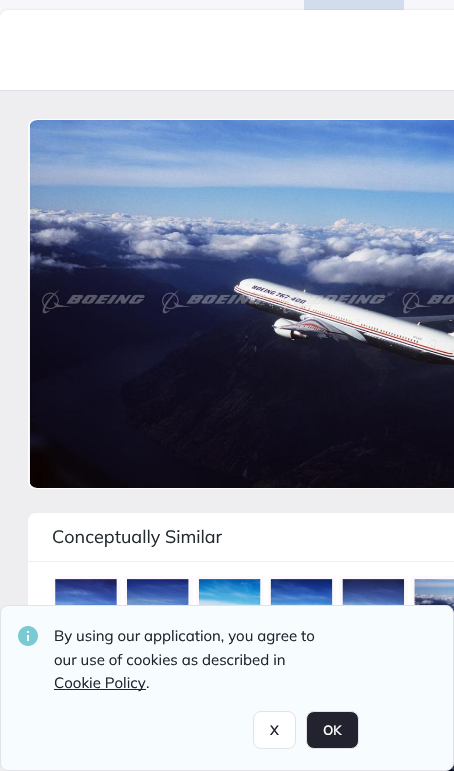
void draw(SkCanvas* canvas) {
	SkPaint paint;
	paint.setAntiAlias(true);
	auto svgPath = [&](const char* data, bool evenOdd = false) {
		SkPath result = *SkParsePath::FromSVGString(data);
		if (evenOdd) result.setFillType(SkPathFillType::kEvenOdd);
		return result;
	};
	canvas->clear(0xfff7f7fb);
	paint.setColor(0xffd1dded);
	canvas->drawRect(SkRect::MakeXYWH(304, 0, 100, 10), paint);
	paint.setColor(0x14000000);
	paint.setMaskFilter(SkMaskFilter::MakeBlur(kNormal_SkBlurStyle, 1.5));
	canvas->drawRoundRect(SkRect::MakeXYWH(0, 10, 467, 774), 8, 8, paint);
	paint.setMaskFilter(nullptr);
	paint.setColor(0xffffffff);
	canvas->drawPath(svgPath("M8 10H454V771H0V18C0 13.5 3.5 10 8 10Z"), paint);
	paint.setColor(0xffdfe0e4);
	canvas->drawRect(SkRect::MakeXYWH(0, 90, 454, 1), paint);
	paint.setColor(0xffeeeef1);
	canvas->drawRect(SkRect::MakeXYWH(0, 91, 454, 680), paint);
	paint.setColor(0xffffffff);
	canvas->drawPath(svgPath("M36 119H454V489H36C31.5 489 28 485.5 28 481V127C28 122.5 31.5 119 36 119Z"), paint);
	canvas->drawImageRect(SkImages::DeferredFromEncodedData(SkData::MakeFromFileName("img1.png")), SkRect::MakeXYWH(29, 120, 425, 368), SkSamplingOptions());
	canvas->drawPath(svgPath("M36 513H454V771H28V521C28 516.5 31.5 513 36 513Z"), paint);
	SkFont f1(fontMgr->matchFamilyStyle("Mulish", SkFontStyle(200, SkFontStyle::kNormal_Width, SkFontStyle::kUpright_Slant)), 18);
	f1.setSubpixel(true);
	paint.setColor(0xff242b2e);
	canvas->drawString("Conceptually Similar", 52, 543, f1, paint);
	paint.setColor(0xfffcfafc);
	canvas->drawPath(svgPath("M60 576H121V676H52V584C52 579.5 55.5 576 60 576Z"), paint);
	canvas->drawImageRect(SkImages::DeferredFromEncodedData(SkData::MakeFromFileName("img2.png")), SkRect::MakeXYWH(55, 579, 62, 26), SkSamplingOptions());
	canvas->drawRect(SkRect::MakeXYWH(124, 576, 69, 29), paint);
	canvas->drawImageRect(SkImages::DeferredFromEncodedData(SkData::MakeFromFileName("img3.png")), SkRect::MakeXYWH(127, 579, 62, 26), SkSamplingOptions());
	canvas->drawRect(SkRect::MakeXYWH(196, 576, 68, 29), paint);
	canvas->drawImageRect(SkImages::DeferredFromEncodedData(SkData::MakeFromFileName("img4.png")), SkRect::MakeXYWH(198, 579, 63, 26), SkSamplingOptions());
	canvas->drawRect(SkRect::MakeXYWH(268, 576, 68, 29), paint);
	canvas->drawImageRect(SkImages::DeferredFromEncodedData(SkData::MakeFromFileName("img5.png")), SkRect::MakeXYWH(270, 579, 63, 26), SkSamplingOptions());
	canvas->drawRect(SkRect::MakeXYWH(339, 576, 69, 29), paint);
	canvas->drawImageRect(SkImages::DeferredFromEncodedData(SkData::MakeFromFileName("img6.png")), SkRect::MakeXYWH(342, 579, 63, 26), SkSamplingOptions());
	canvas->drawRect(SkRect::MakeXYWH(411, 576, 43, 29), paint);
	canvas->drawImageRect(SkImages::DeferredFromEncodedData(SkData::MakeFromFileName("img7.png")), SkRect::MakeXYWH(414, 579, 40, 34), SkSamplingOptions());
	canvas->drawImageRect(SkImages::DeferredFromEncodedData(SkData::MakeFromFileName("img8.png")), SkRect::MakeXYWH(446, 763, 8, 8), SkSamplingOptions());
	paint.setColor(0xffeeeef1);
	canvas->drawRect(SkRect::MakeXYWH(28, 561, 426, 1), paint);
	paint.setColor(0xfff7fdfe);
	canvas->drawRoundRect(SkRect::MakeXYWH(0.5, 605.5, 453, 165), 7.5, 7.5, paint);
	paint.setStroke(true);
	paint.setStrokeWidth(1);
	paint.setColor(0xffe2e2e9);
	canvas->drawRoundRect(SkRect::MakeXYWH(0.5, 605.5, 453, 165), 7.5, 7.5, paint);
	canvas->drawImageRect(SkImages::DeferredFromEncodedData(SkData::MakeFromFileName("img9.png")), SkRect::MakeXYWH(18, 626, 20, 20), SkSamplingOptions());
	SkFont f2(fontMgr->matchFamilyStyle("Mulish", SkFontStyle(200, SkFontStyle::kNormal_Width, SkFontStyle::kUpright_Slant)), 15);
	f2.setSubpixel(true);
	paint.setStroke(false);
	paint.setColor(0xff23232f);
	canvas->drawString("By using our application, you agree to", 54, 641, f2, paint);
	canvas->drawString("our use of cookies as described in", 54, 665, f2, paint);
	canvas->drawRect(SkRect::MakeXYWH(54, 689, 92, 1), paint);
	canvas->drawString("Cookie Policy", 54, 688, f2, paint);
	canvas->drawString(".", 146, 688, f2, paint);
	paint.setColor(0xffffffff);
	canvas->drawRoundRect(SkRect::MakeXYWH(253.5, 711.5, 42, 37), 7.5, 7.5, paint);
	paint.setStroke(true);
	paint.setColor(0xffe2e2e9);
	canvas->drawRoundRect(SkRect::MakeXYWH(253.5, 711.5, 42, 37), 7.5, 7.5, paint);
	SkFont f3(fontMgr->matchFamilyStyle("Mulish", SkFontStyle::Bold()), 13);
	f3.setSubpixel(true);
	paint.setStroke(false);
	paint.setColor(0xff23232f);
	canvas->drawString("X", 270, 735, f3, paint);
	canvas->drawRoundRect(SkRect::MakeXYWH(306.5, 711.5, 52, 37), 7.5, 7.5, paint);
	paint.setStroke(true);
	paint.setColor(0xffe2e2e9);
	canvas->drawRoundRect(SkRect::MakeXYWH(306.5, 711.5, 52, 37), 7.5, 7.5, paint);
	paint.setStroke(false);
	paint.setColor(0xffffffff);
	canvas->drawString("OK", 323, 735, f3, paint);
}
